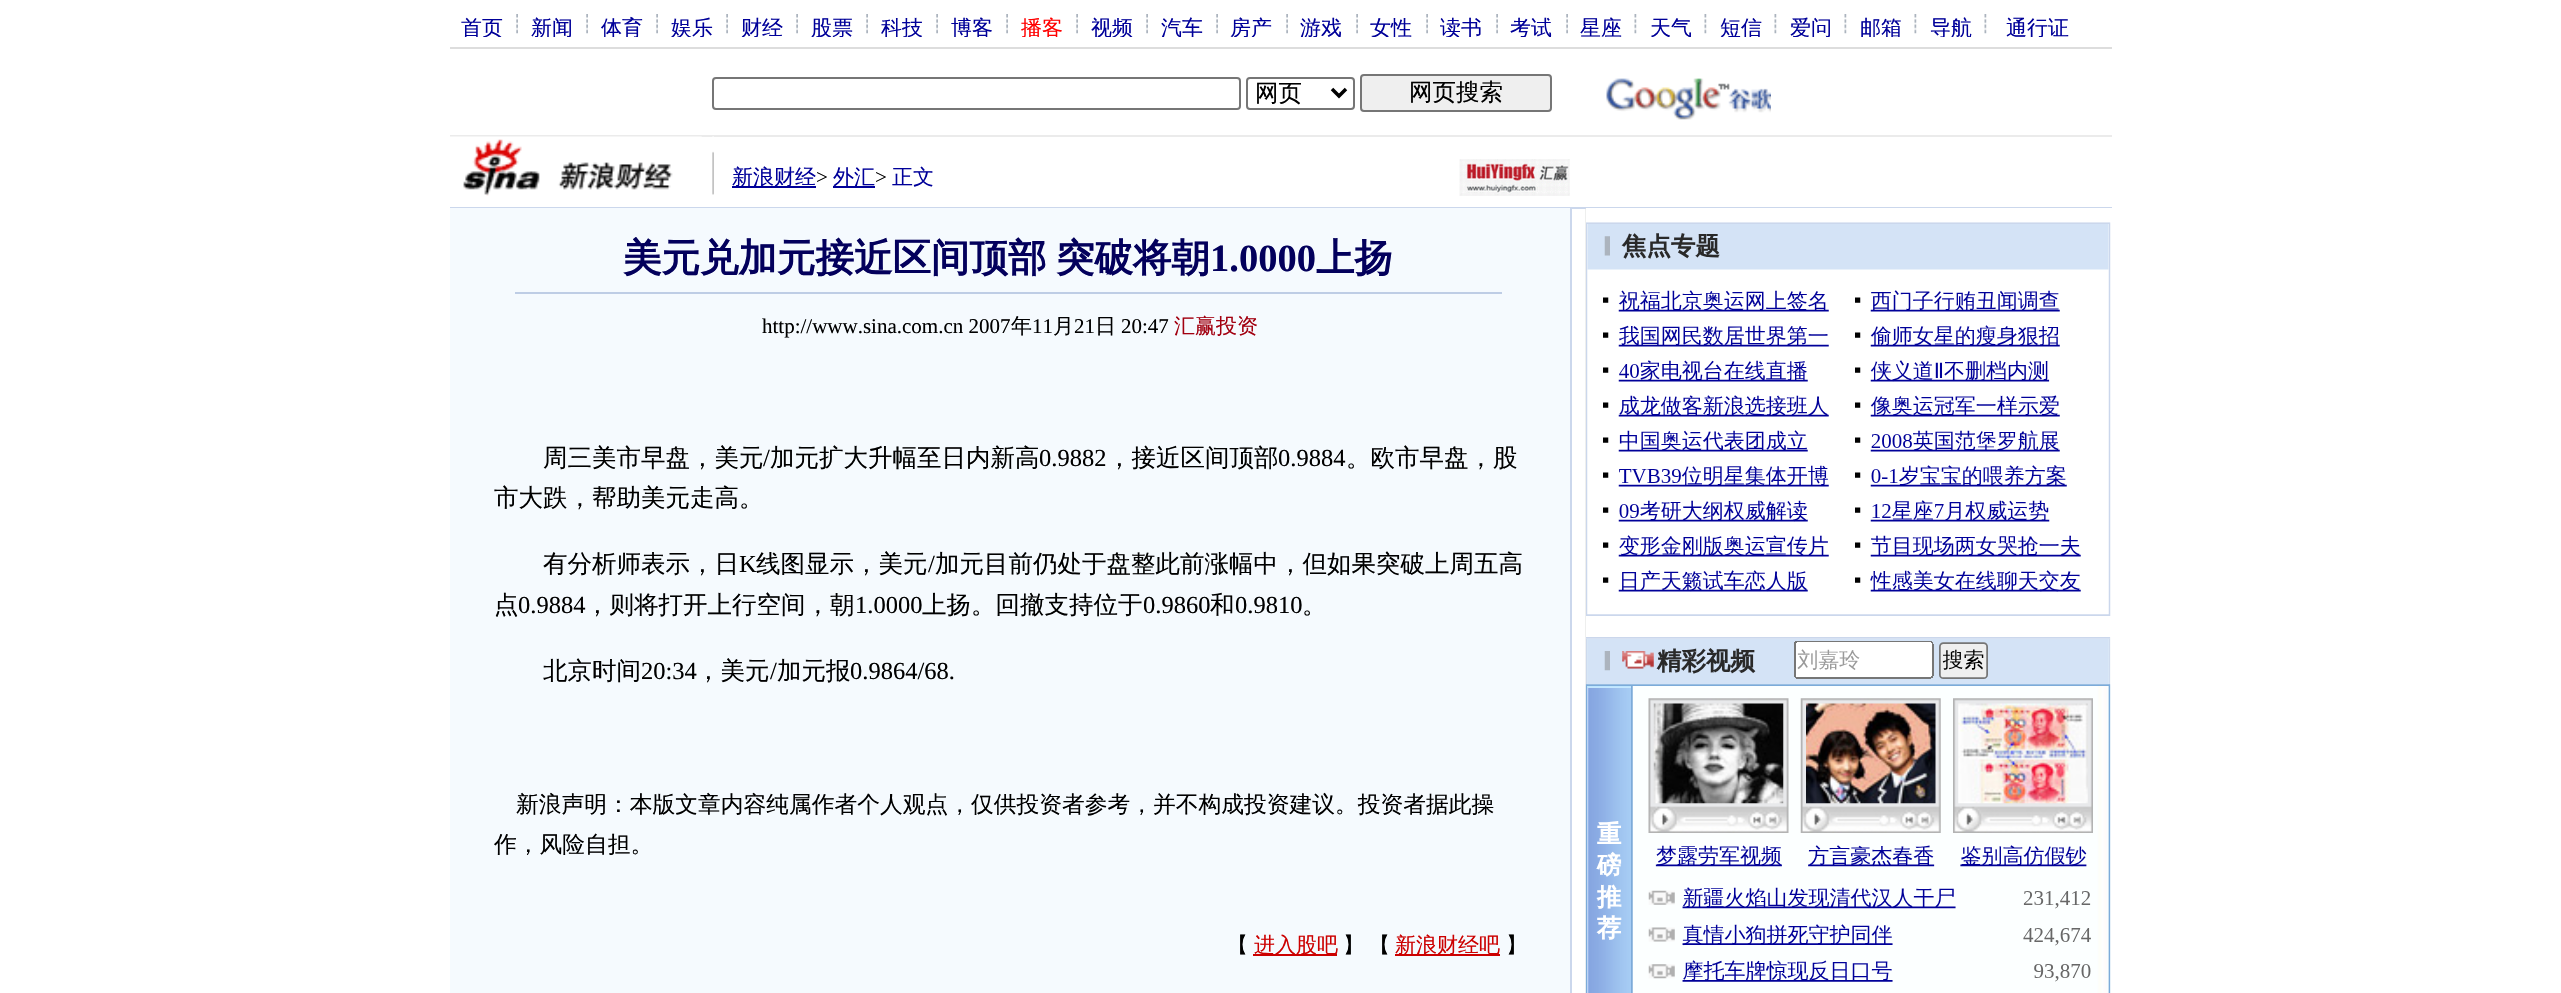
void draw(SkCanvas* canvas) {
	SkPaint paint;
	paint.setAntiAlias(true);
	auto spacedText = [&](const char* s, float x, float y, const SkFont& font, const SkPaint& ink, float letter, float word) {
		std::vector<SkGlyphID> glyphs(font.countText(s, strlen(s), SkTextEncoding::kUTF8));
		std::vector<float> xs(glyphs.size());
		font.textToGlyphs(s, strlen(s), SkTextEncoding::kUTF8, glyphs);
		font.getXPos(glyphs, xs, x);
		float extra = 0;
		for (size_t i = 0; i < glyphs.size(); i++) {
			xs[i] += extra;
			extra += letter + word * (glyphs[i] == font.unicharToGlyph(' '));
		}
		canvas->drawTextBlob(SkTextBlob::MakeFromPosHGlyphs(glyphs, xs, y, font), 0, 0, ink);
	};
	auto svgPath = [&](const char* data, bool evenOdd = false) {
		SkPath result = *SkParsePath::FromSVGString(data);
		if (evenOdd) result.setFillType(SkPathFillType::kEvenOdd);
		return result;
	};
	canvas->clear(0xffffffff);
	paint.setColor(0xffdddddd);
	canvas->drawRect(SkRect::MakeXYWH(450, 47, 1662, 2), paint);
	canvas->save();
	canvas->clipRect(SkRect::MakeXYWH(450, 14, 65, 23));
	SkFont f1(fontMgr->matchFamilyStyle("WenQuanYi Zen Hei", SkFontStyle(500, SkFontStyle::kNormal_Width, SkFontStyle::kUpright_Slant)), 21);
	f1.setSubpixel(true);
	paint.setColor(0xff000099);
	canvas->drawString("首页", 461, 35, f1, paint);
	canvas->restore();
	canvas->drawImageRect(SkImages::DeferredFromEncodedData(SkData::MakeFromFileName("img1.png")), SkRect::MakeXYWH(516, 14, 2, 20), SkSamplingOptions());
	canvas->save();
	canvas->clipRect(SkRect::MakeXYWH(520, 14, 65, 23));
	canvas->drawString("新闻", 531, 35, f1, paint);
	canvas->restore();
	canvas->drawImageRect(SkImages::DeferredFromEncodedData(SkData::MakeFromFileName("img1.png")), SkRect::MakeXYWH(586, 14, 2, 20), SkSamplingOptions());
	canvas->save();
	canvas->clipRect(SkRect::MakeXYWH(590, 14, 65, 23));
	canvas->drawString("体育", 601, 35, f1, paint);
	canvas->restore();
	canvas->drawImageRect(SkImages::DeferredFromEncodedData(SkData::MakeFromFileName("img1.png")), SkRect::MakeXYWH(656, 14, 2, 20), SkSamplingOptions());
	canvas->save();
	canvas->clipRect(SkRect::MakeXYWH(660, 14, 65, 23));
	canvas->drawString("娱乐", 671, 35, f1, paint);
	canvas->restore();
	canvas->drawImageRect(SkImages::DeferredFromEncodedData(SkData::MakeFromFileName("img1.png")), SkRect::MakeXYWH(726, 14, 2, 20), SkSamplingOptions());
	canvas->save();
	canvas->clipRect(SkRect::MakeXYWH(730, 14, 65, 23));
	canvas->drawString("财经", 741, 35, f1, paint);
	canvas->restore();
	canvas->drawImageRect(SkImages::DeferredFromEncodedData(SkData::MakeFromFileName("img1.png")), SkRect::MakeXYWH(796, 14, 2, 20), SkSamplingOptions());
	canvas->save();
	canvas->clipRect(SkRect::MakeXYWH(800, 14, 65, 23));
	canvas->drawString("股票", 811, 35, f1, paint);
	canvas->restore();
	canvas->drawImageRect(SkImages::DeferredFromEncodedData(SkData::MakeFromFileName("img1.png")), SkRect::MakeXYWH(866, 14, 2, 20), SkSamplingOptions());
	canvas->save();
	canvas->clipRect(SkRect::MakeXYWH(870, 14, 65, 23));
	canvas->drawString("科技", 881, 35, f1, paint);
	canvas->restore();
	canvas->drawImageRect(SkImages::DeferredFromEncodedData(SkData::MakeFromFileName("img1.png")), SkRect::MakeXYWH(936, 14, 2, 20), SkSamplingOptions());
	canvas->save();
	canvas->clipRect(SkRect::MakeXYWH(940, 14, 65, 23));
	canvas->drawString("博客", 951, 35, f1, paint);
	canvas->restore();
	canvas->drawImageRect(SkImages::DeferredFromEncodedData(SkData::MakeFromFileName("img1.png")), SkRect::MakeXYWH(1006, 14, 2, 20), SkSamplingOptions());
	canvas->save();
	canvas->clipRect(SkRect::MakeXYWH(1010, 14, 65, 23));
	paint.setColor(0xffff0000);
	canvas->drawString("播客", 1021, 35, f1, paint);
	canvas->restore();
	canvas->drawImageRect(SkImages::DeferredFromEncodedData(SkData::MakeFromFileName("img1.png")), SkRect::MakeXYWH(1076, 14, 2, 20), SkSamplingOptions());
	canvas->save();
	canvas->clipRect(SkRect::MakeXYWH(1080, 14, 65, 23));
	paint.setColor(0xff000099);
	canvas->drawString("视频", 1091, 35, f1, paint);
	canvas->restore();
	canvas->drawImageRect(SkImages::DeferredFromEncodedData(SkData::MakeFromFileName("img1.png")), SkRect::MakeXYWH(1146, 14, 2, 20), SkSamplingOptions());
	canvas->save();
	canvas->clipRect(SkRect::MakeXYWH(1150, 14, 65, 23));
	canvas->drawString("汽车", 1161, 35, f1, paint);
	canvas->restore();
	canvas->drawImageRect(SkImages::DeferredFromEncodedData(SkData::MakeFromFileName("img1.png")), SkRect::MakeXYWH(1216, 14, 2, 20), SkSamplingOptions());
	canvas->save();
	canvas->clipRect(SkRect::MakeXYWH(1220, 14, 65, 23));
	canvas->drawString("房产", 1230, 35, f1, paint);
	canvas->restore();
	canvas->drawImageRect(SkImages::DeferredFromEncodedData(SkData::MakeFromFileName("img1.png")), SkRect::MakeXYWH(1286, 14, 2, 20), SkSamplingOptions());
	canvas->save();
	canvas->clipRect(SkRect::MakeXYWH(1290, 14, 65, 23));
	canvas->drawString("游戏", 1300, 35, f1, paint);
	canvas->restore();
	canvas->drawImageRect(SkImages::DeferredFromEncodedData(SkData::MakeFromFileName("img1.png")), SkRect::MakeXYWH(1356, 14, 2, 20), SkSamplingOptions());
	canvas->save();
	canvas->clipRect(SkRect::MakeXYWH(1360, 14, 65, 23));
	canvas->drawString("女性", 1370, 35, f1, paint);
	canvas->restore();
	canvas->drawImageRect(SkImages::DeferredFromEncodedData(SkData::MakeFromFileName("img1.png")), SkRect::MakeXYWH(1426, 14, 2, 20), SkSamplingOptions());
	canvas->save();
	canvas->clipRect(SkRect::MakeXYWH(1430, 14, 65, 23));
	canvas->drawString("读书", 1440, 35, f1, paint);
	canvas->restore();
	canvas->drawImageRect(SkImages::DeferredFromEncodedData(SkData::MakeFromFileName("img1.png")), SkRect::MakeXYWH(1496, 14, 2, 20), SkSamplingOptions());
	canvas->save();
	canvas->clipRect(SkRect::MakeXYWH(1500, 14, 65, 23));
	canvas->drawString("考试", 1510, 35, f1, paint);
	canvas->restore();
	canvas->drawImageRect(SkImages::DeferredFromEncodedData(SkData::MakeFromFileName("img1.png")), SkRect::MakeXYWH(1566, 14, 2, 20), SkSamplingOptions());
	canvas->drawString("星座", 1580, 35, f1, paint);
	canvas->drawImageRect(SkImages::DeferredFromEncodedData(SkData::MakeFromFileName("img2.png")), SkRect::MakeXYWH(1634, 14, 3, 20), SkSamplingOptions());
	canvas->save();
	canvas->clipRect(SkRect::MakeXYWH(1638, 14, 65, 23));
	canvas->drawString("天气", 1650, 35, f1, paint);
	canvas->restore();
	canvas->drawImageRect(SkImages::DeferredFromEncodedData(SkData::MakeFromFileName("img2.png")), SkRect::MakeXYWH(1704, 14, 3, 20), SkSamplingOptions());
	canvas->save();
	canvas->clipRect(SkRect::MakeXYWH(1708, 14, 65, 23));
	canvas->drawString("短信", 1720, 35, f1, paint);
	canvas->restore();
	canvas->drawImageRect(SkImages::DeferredFromEncodedData(SkData::MakeFromFileName("img2.png")), SkRect::MakeXYWH(1774, 14, 3, 20), SkSamplingOptions());
	canvas->save();
	canvas->clipRect(SkRect::MakeXYWH(1778, 14, 65, 23));
	canvas->drawString("爱问", 1790, 35, f1, paint);
	canvas->restore();
	canvas->drawImageRect(SkImages::DeferredFromEncodedData(SkData::MakeFromFileName("img2.png")), SkRect::MakeXYWH(1844, 14, 3, 20), SkSamplingOptions());
	canvas->save();
	canvas->clipRect(SkRect::MakeXYWH(1848, 14, 65, 23));
	canvas->drawString("邮箱", 1860, 35, f1, paint);
	canvas->restore();
	canvas->drawImageRect(SkImages::DeferredFromEncodedData(SkData::MakeFromFileName("img2.png")), SkRect::MakeXYWH(1914, 14, 3, 20), SkSamplingOptions());
	canvas->save();
	canvas->clipRect(SkRect::MakeXYWH(1918, 14, 65, 23));
	canvas->drawString("导航", 1930, 35, f1, paint);
	canvas->restore();
	canvas->drawImageRect(SkImages::DeferredFromEncodedData(SkData::MakeFromFileName("img2.png")), SkRect::MakeXYWH(1984, 14, 3, 20), SkSamplingOptions());
	canvas->save();
	canvas->clipRect(SkRect::MakeXYWH(1988, 14, 98, 23));
	canvas->drawString("通行证", 2006, 35, f1, paint);
	canvas->restore();
	paint.setColor(0xffebebeb);
	canvas->drawRect(SkRect::MakeXYWH(450, 135, 1662, 2), paint);
	paint.setStroke(true);
	paint.setStrokeWidth(2);
	paint.setColor(0xff767676);
	canvas->drawRoundRect(SkRect::MakeXYWH(713, 78, 527, 31), 3, 3, paint);
	canvas->drawRoundRect(SkRect::MakeXYWH(1247, 78, 107, 31), 3, 3, paint);
	paint.setStrokeWidth(3.5);
	paint.setColor(0xff000000);
	canvas->drawPath(svgPath("M1332 89L1339 96L1346 89"), paint);
	SkFont f2(fontMgr->matchFamilyStyle("WenQuanYi Zen Hei", SkFontStyle(500, SkFontStyle::kNormal_Width, SkFontStyle::kUpright_Slant)), 23.5);
	f2.setSubpixel(true);
	paint.setStroke(false);
	canvas->drawString("网页", 1255, 101, f2, paint);
	paint.setColor(0xffefefef);
	canvas->drawRoundRect(SkRect::MakeXYWH(1361, 75, 190, 36), 3, 3, paint);
	paint.setStroke(true);
	paint.setStrokeWidth(2);
	paint.setColor(0xff767676);
	canvas->drawRoundRect(SkRect::MakeXYWH(1361, 75, 190, 36), 3, 3, paint);
	paint.setStroke(false);
	paint.setColor(0xff000000);
	canvas->drawString("网页搜索", 1409, 100, f2, paint);
	canvas->drawImageRect(SkImages::DeferredFromEncodedData(SkData::MakeFromFileName("img3.png")), SkRect::MakeXYWH(1606, 78, 165, 42), SkSamplingOptions());
	canvas->drawImageRect(SkImages::DeferredFromEncodedData(SkData::MakeFromFileName("img4.png")), SkRect::MakeXYWH(450, 136, 252, 60), SkSamplingOptions());
	canvas->drawImageRect(SkImages::DeferredFromEncodedData(SkData::MakeFromFileName("img5.png")), SkRect::MakeXYWH(712, 136, 2, 59), SkSamplingOptions());
	paint.setColor(0xff000099);
	canvas->drawRect(SkRect::MakeXYWH(732, 186, 84, 2), paint);
	canvas->drawString("新浪财经", 732, 184, f1, paint);
	SkFont f3(fontMgr->matchFamilyStyle("Liberation Serif", SkFontStyle::Normal()), 21);
	f3.setSubpixel(true);
	paint.setColor(0xff000000);
	canvas->drawString(">", 816, 184, f3, paint);
	paint.setColor(0xff000099);
	canvas->drawRect(SkRect::MakeXYWH(833, 186, 42, 2), paint);
	canvas->drawString("外汇", 833, 184, f1, paint);
	paint.setColor(0xff000000);
	canvas->drawString(">", 875, 184, f3, paint);
	paint.setColor(0xff000099);
	canvas->drawString("正文", 892, 184, f1, paint);
	canvas->drawImageRect(SkImages::DeferredFromEncodedData(SkData::MakeFromFileName("img6.png")), SkRect::MakeXYWH(1459, 159, 111, 37), SkSamplingOptions());
	paint.setColor(0xffcbd7ec);
	canvas->drawRect(SkRect::MakeXYWH(450, 207, 1662, 2), paint);
	paint.setColor(0xfff5fafe);
	canvas->drawRect(SkRect::MakeXYWH(450, 208, 1120, 785), paint);
	paint.setColor(0xffcbd7ec);
	canvas->drawRect(SkRect::MakeXYWH(1570, 208, 2, 785), paint);
	paint.setColor(0xffbecde5);
	canvas->drawRect(SkRect::MakeXYWH(515, 292, 987, 2), paint);
	SkFont f4(fontMgr->matchFamilyStyle("WenQuanYi Zen Hei", SkFontStyle::Bold()), 38.5);
	f4.setSubpixel(true);
	paint.setColor(0xff03005c);
	spacedText("美元兑加元接近区间顶部 突破将朝", 623, 271, f4, paint, 0, -2);
	SkFont f5(fontMgr->matchFamilyStyle("Liberation Serif", SkFontStyle::Bold()), 38.5);
	f5.setSubpixel(true);
	canvas->drawString("1.0000", 1210, 271, f5, paint);
	canvas->drawString("上扬", 1316, 271, f4, paint);
	paint.setColor(0xff000000);
	canvas->drawString("http://www.sina.com.cn 2007", 762, 333, f3, paint);
	canvas->drawString("年", 1011, 333, f1, paint);
	canvas->drawString("11", 1032, 333, f3, paint);
	canvas->drawString("月", 1053, 333, f1, paint);
	canvas->drawString("21", 1074, 333, f3, paint);
	canvas->drawString("日", 1095, 333, f1, paint);
	canvas->drawString("20:47", 1121, 333, f3, paint);
	paint.setColor(0xffa20010);
	canvas->drawString("汇赢投资", 1174, 333, f1, paint);
	SkFont f6(fontMgr->matchFamilyStyle("WenQuanYi Zen Hei", SkFontStyle(500, SkFontStyle::kNormal_Width, SkFontStyle::kUpright_Slant)), 24.5);
	f6.setSubpixel(true);
	paint.setColor(0xff000000);
	canvas->drawString("周三美市早盘，美元", 543, 466, f6, paint);
	SkFont f7(fontMgr->matchFamilyStyle("Liberation Serif", SkFontStyle::Normal()), 24.5);
	f7.setSubpixel(true);
	canvas->drawString("/", 763, 466, f7, paint);
	canvas->drawString("加元扩大升幅至日内新高", 770, 466, f6, paint);
	canvas->drawString("0.9882", 1039, 466, f7, paint);
	canvas->drawString("，接近区间顶部", 1107, 466, f6, paint);
	canvas->drawString("0.9884", 1278, 466, f7, paint);
	canvas->drawString("。欧市早盘，股", 1346, 466, f6, paint);
	canvas->drawString("市大跌，帮助美元走高。", 494, 506, f6, paint);
	canvas->drawString("有分析师表示，日", 543, 572, f6, paint);
	canvas->drawString("K", 739, 572, f7, paint);
	canvas->drawString("线图显示，美元", 756, 572, f6, paint);
	canvas->drawString("/", 928, 572, f7, paint);
	canvas->drawString("加元目前仍处于盘整此前涨幅中，但如果突破上周五高", 935, 572, f6, paint);
	canvas->drawString("点", 494, 613, f6, paint);
	canvas->drawString("0.9884", 518, 613, f7, paint);
	canvas->drawString("，则将打开上行空间，朝", 585, 613, f6, paint);
	canvas->drawString("1.0000", 855, 613, f7, paint);
	canvas->drawString("上扬。回撤支持位于", 922, 613, f6, paint);
	canvas->drawString("0.9860", 1143, 613, f7, paint);
	canvas->drawString("和", 1210, 613, f6, paint);
	canvas->drawString("0.9810", 1235, 613, f7, paint);
	canvas->drawString("。", 1302, 613, f6, paint);
	canvas->drawString("北京时间", 543, 679, f6, paint);
	canvas->drawString("20:34", 641, 679, f7, paint);
	canvas->drawString("，美元", 696, 679, f6, paint);
	canvas->drawString("/", 770, 679, f7, paint);
	canvas->drawString("加元报", 777, 679, f6, paint);
	canvas->drawString("0.9864/68.", 850, 679, f7, paint);
	SkFont f8(fontMgr->matchFamilyStyle("WenQuanYi Zen Hei", SkFontStyle(500, SkFontStyle::kNormal_Width, SkFontStyle::kUpright_Slant)), 22.75);
	f8.setSubpixel(true);
	canvas->drawString("新浪声明：本版文章内容纯属作者个人观点，仅供投资者参考，并不构成投资建议。投资者据此操", 516, 812, f8, paint);
	canvas->drawString("作，风险自担。", 494, 852, f8, paint);
	canvas->drawString("【", 1227, 952, f1, paint);
	paint.setColor(0xffcc0000);
	canvas->drawRect(SkRect::MakeXYWH(1253, 954, 84, 2), paint);
	canvas->drawString("进入股吧", 1254, 952, f1, paint);
	paint.setColor(0xff000000);
	canvas->drawString("】", 1343, 952, f1, paint);
	canvas->drawString("【", 1369, 952, f1, paint);
	paint.setColor(0xffcc0000);
	canvas->drawRect(SkRect::MakeXYWH(1395, 954, 105, 2), paint);
	canvas->drawString("新浪财经吧", 1395, 952, f1, paint);
	paint.setColor(0xff000000);
	canvas->drawString("】", 1506, 952, f1, paint);
	canvas->drawImageRect(SkImages::DeferredFromEncodedData(SkData::MakeFromFileName("img7.png")), SkRect::MakeXYWH(1585, 208, 1, 785), SkSamplingOptions());
	paint.setColor(0xffffffff);
	canvas->drawRect(SkRect::MakeXYWH(1586, 208, 526, 1), paint);
	canvas->drawImageRect(SkImages::DeferredFromEncodedData(SkData::MakeFromFileName("img8.png")), SkRect::MakeXYWH(1586, 222, 525, 394), SkSamplingOptions());
	canvas->drawImageRect(SkImages::DeferredFromEncodedData(SkData::MakeFromFileName("img9.png")), SkRect::MakeXYWH(1585, 637, 526, 356), SkSamplingOptions());
}
